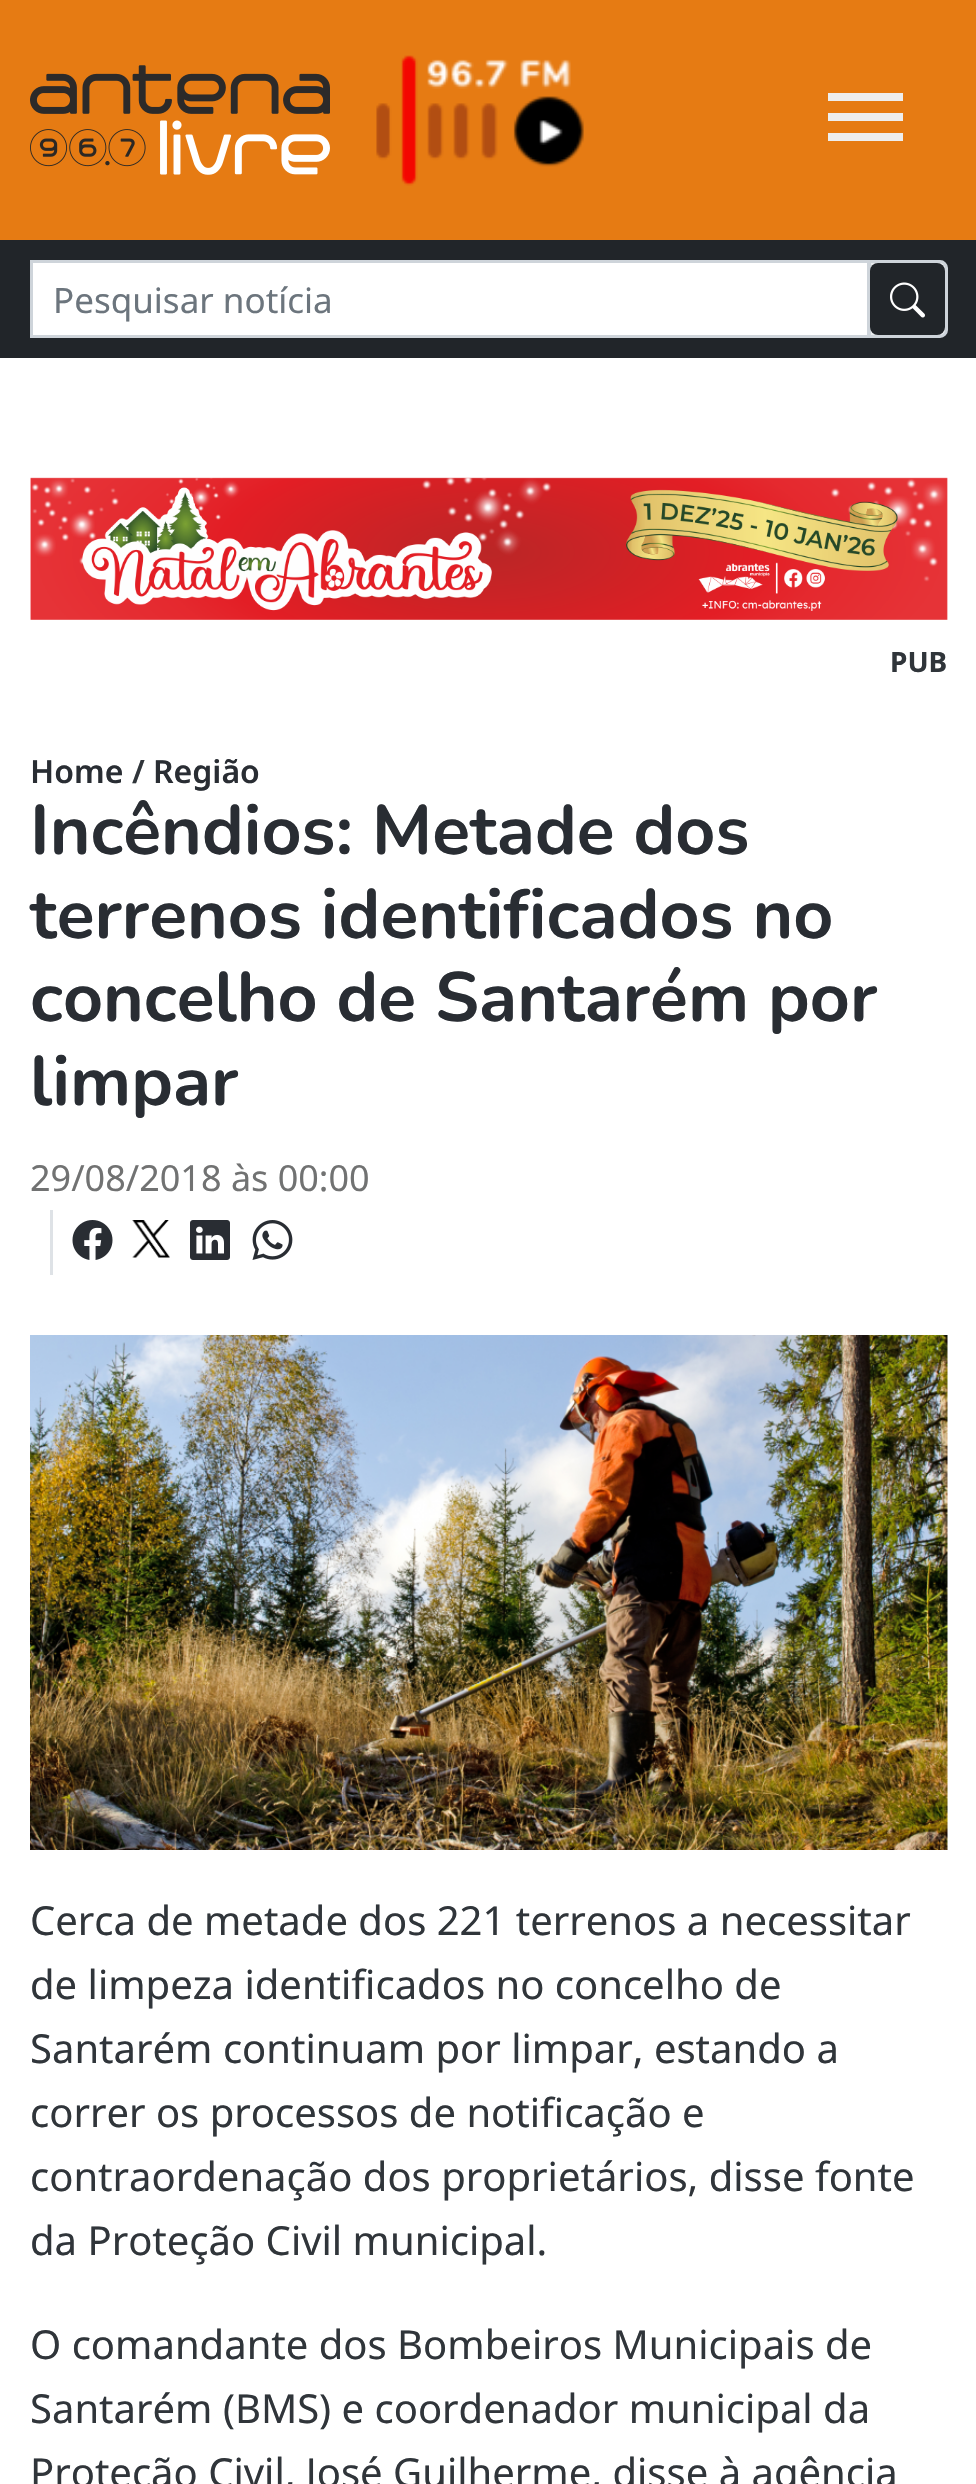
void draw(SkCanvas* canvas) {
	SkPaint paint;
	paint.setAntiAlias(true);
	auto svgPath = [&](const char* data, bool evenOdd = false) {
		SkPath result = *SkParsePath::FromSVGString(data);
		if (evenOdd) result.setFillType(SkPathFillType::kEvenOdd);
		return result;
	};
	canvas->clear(0xffffffff);
	paint.setColor(0xffe67b13);
	canvas->drawRect(SkRect::MakeXYWH(0, 0, 976, 240), paint);
	canvas->drawImageRect(SkImages::DeferredFromEncodedData(SkData::MakeFromFileName("img1.png")), SkRect::MakeXYWH(30, 65, 300, 110), SkSamplingOptions());
	canvas->drawImageRect(SkImages::DeferredFromEncodedData(SkData::MakeFromFileName("img2.png")), SkRect::MakeXYWH(376, 55, 208, 131), SkSamplingOptions());
	paint.setColor(0xffeeeeee);
	canvas->drawRect(SkRect::MakeXYWH(828, 93, 75, 8), paint);
	canvas->drawRect(SkRect::MakeXYWH(828, 113, 75, 8), paint);
	canvas->drawRect(SkRect::MakeXYWH(828, 133, 75, 8), paint);
	paint.setColor(0xff212529);
	canvas->drawRect(SkRect::MakeXYWH(0, 240, 976, 118), paint);
	paint.setColor(0xffe9ecef);
	canvas->drawPath(svgPath("M869.5 261.5H940C943.5 261.5 946.5 264.5 946.5 268V330C946.5 333.5 943.5 336.5 940 336.5H869.5Z"), paint);
	paint.setStroke(true);
	paint.setStrokeWidth(3);
	paint.setColor(0xffced4da);
	canvas->drawPath(svgPath("M869.5 261.5H940C943.5 261.5 946.5 264.5 946.5 268V330C946.5 333.5 943.5 336.5 940 336.5H869.5Z"), paint);
	paint.setStroke(false);
	paint.setColor(0xffffffff);
	canvas->drawRect(SkRect::MakeXYWH(31.5, 261.5, 837, 75), paint);
	paint.setStroke(true);
	paint.setColor(0xffced4da);
	canvas->drawRect(SkRect::MakeXYWH(31.5, 261.5, 837, 75), paint);
	SkFont f1(fontMgr->matchFamilyStyle("Noto Sans", SkFontStyle::Normal()), 35);
	f1.setSubpixel(true);
	paint.setStroke(false);
	paint.setColor(0xff6c757d);
	canvas->drawString("Pesquisar notícia", 53, 313, f1, paint);
	paint.setColor(0xff212529);
	canvas->drawRoundRect(SkRect::MakeXYWH(870, 263, 75, 72), 8, 8, paint);
	canvas->drawImageRect(SkImages::DeferredFromEncodedData(SkData::MakeFromFileName("img3.png")), SkRect::MakeXYWH(890, 282, 35, 36), SkSamplingOptions());
	canvas->drawImageRect(SkImages::DeferredFromEncodedData(SkData::MakeFromFileName("img4.png")), SkRect::MakeXYWH(30, 477, 918, 143), SkSamplingOptions());
	SkFont f2(fontMgr->matchFamilyStyle("Noto Sans", SkFontStyle::Bold()), 28);
	f2.setSubpixel(true);
	paint.setColor(0xff30353a);
	canvas->drawString("PUB", 890, 672, f2, paint);
	SkFont f3(fontMgr->matchFamilyStyle("Noto Sans", SkFontStyle(600, SkFontStyle::kNormal_Width, SkFontStyle::kUpright_Slant)), 32);
	f3.setSubpixel(true);
	paint.setColor(0xff292d33);
	canvas->drawString("Home", 30, 783, f3, paint);
	paint.setColor(0xff30353a);
	canvas->drawString("/", 132, 783, f3, paint);
	paint.setColor(0xff292d33);
	canvas->drawString("Região", 153, 783, f3, paint);
	SkFont f4(fontMgr->matchFamilyStyle("Nunito", SkFontStyle::Bold()), 69.7);
	f4.setSubpixel(true);
	canvas->drawString("Incêndios: Metade dos", 30, 854, f4, paint);
	canvas->drawString("terrenos identificados no", 30, 938, f4, paint);
	canvas->drawString("concelho de Santarém por", 30, 1021, f4, paint);
	canvas->drawString("limpar", 30, 1105, f4, paint);
	SkFont f5(fontMgr->matchFamilyStyle("Noto Sans", SkFontStyle::Normal()), 36);
	f5.setSubpixel(true);
	paint.setColor(0xff717272);
	canvas->drawString("29/08/2018 às 00:00", 30, 1191, f5, paint);
	paint.setColor(0xffdee2e6);
	canvas->drawRect(SkRect::MakeXYWH(50, 1210, 3, 65), paint);
	canvas->drawImageRect(SkImages::DeferredFromEncodedData(SkData::MakeFromFileName("img5.png")), SkRect::MakeXYWH(72, 1220, 41, 40), SkSamplingOptions());
	canvas->drawImageRect(SkImages::DeferredFromEncodedData(SkData::MakeFromFileName("img6.png")), SkRect::MakeXYWH(132, 1220, 38, 38), SkSamplingOptions());
	canvas->drawImageRect(SkImages::DeferredFromEncodedData(SkData::MakeFromFileName("img7.png")), SkRect::MakeXYWH(190, 1220, 40, 40), SkSamplingOptions());
	canvas->drawImageRect(SkImages::DeferredFromEncodedData(SkData::MakeFromFileName("img8.png")), SkRect::MakeXYWH(252, 1220, 41, 40), SkSamplingOptions());
	canvas->drawImageRect(SkImages::DeferredFromEncodedData(SkData::MakeFromFileName("img9.png")), SkRect::MakeXYWH(30, 1335, 918, 515), SkSamplingOptions());
	SkFont f6(fontMgr->matchFamilyStyle("Noto Sans", SkFontStyle::Normal()), 40);
	f6.setSubpixel(true);
	paint.setColor(0xff30353a);
	canvas->drawString("Cerca de metade dos 221 terrenos a necessitar", 30, 1935, f6, paint);
	canvas->drawString("de limpeza identificados no concelho de", 30, 1999, f6, paint);
	canvas->drawString("Santarém continuam por limpar, estando a", 30, 2063, f6, paint);
	canvas->drawString("correr os processos de notificação e", 30, 2127, f6, paint);
	canvas->drawString("contraordenação dos proprietários, disse fonte", 30, 2191, f6, paint);
	canvas->drawString("da Proteção Civil municipal.", 30, 2255, f6, paint);
	canvas->drawString("O comandante dos Bombeiros Municipais de", 30, 2359, f6, paint);
	canvas->drawString("Santarém (BMS) e coordenador municipal da", 30, 2423, f6, paint);
	canvas->drawString("Proteção Civil, José Guilherme, disse à agência", 30, 2487, f6, paint);
}
